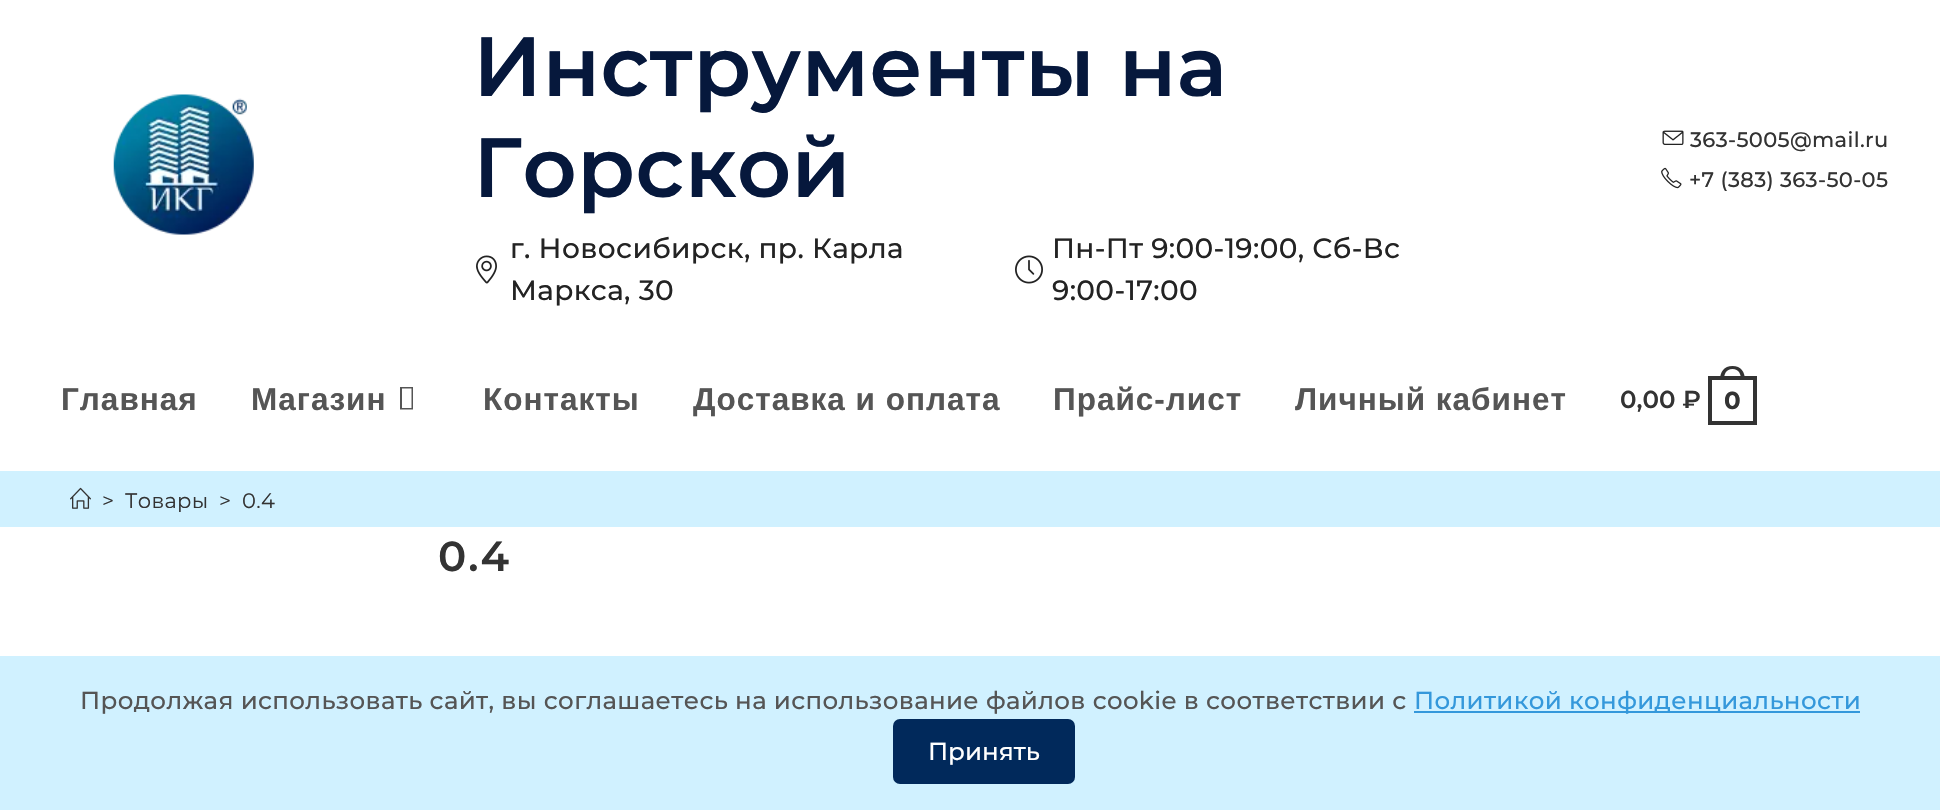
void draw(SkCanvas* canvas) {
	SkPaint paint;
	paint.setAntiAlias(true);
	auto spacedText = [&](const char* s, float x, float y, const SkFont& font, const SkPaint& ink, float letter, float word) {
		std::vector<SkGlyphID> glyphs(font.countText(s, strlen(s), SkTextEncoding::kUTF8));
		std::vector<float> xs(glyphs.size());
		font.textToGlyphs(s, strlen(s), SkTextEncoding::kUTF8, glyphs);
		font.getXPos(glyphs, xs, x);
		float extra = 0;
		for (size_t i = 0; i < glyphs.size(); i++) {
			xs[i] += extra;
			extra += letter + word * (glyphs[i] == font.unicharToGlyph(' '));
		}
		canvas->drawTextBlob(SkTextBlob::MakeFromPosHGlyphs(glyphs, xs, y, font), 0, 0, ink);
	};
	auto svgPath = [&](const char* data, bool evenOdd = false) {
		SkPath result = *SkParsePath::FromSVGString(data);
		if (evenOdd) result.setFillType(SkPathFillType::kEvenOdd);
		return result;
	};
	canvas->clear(0xffffffff);
	SkFont f1(fontMgr->matchFamilyStyle("Montserrat", SkFontStyle(600, SkFontStyle::kNormal_Width, SkFontStyle::kUpright_Slant)), 42);
	f1.setSubpixel(true);
	paint.setColor(0xff333333);
	spacedText("0.4", 438, 571, f1, paint, 2, 0);
	canvas->save();
	canvas->clipRect(SkRect::MakeXYWH(0, 471, 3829, 56));
	paint.setStroke(true);
	paint.setStrokeWidth(1941);
	paint.setColor(0xffd0f1ff);
	canvas->drawRect(SkRect::MakeXYWH(-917.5, -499.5, 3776, 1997), paint);
	canvas->restore();
	canvas->drawImageRect(SkImages::DeferredFromEncodedData(SkData::MakeFromFileName("img1.png")), SkRect::MakeXYWH(113, 94, 141, 141), SkSamplingOptions());
	SkFont f2(fontMgr->matchFamilyStyle("Montserrat", SkFontStyle(600, SkFontStyle::kNormal_Width, SkFontStyle::kUpright_Slant)), 84);
	f2.setSubpixel(true);
	paint.setStroke(false);
	paint.setColor(0xff06183c);
	spacedText("Инструменты на", 473, 96, f2, paint, 0.35, 0);
	spacedText("Горской", 473, 197, f2, paint, 0.35, 0);
	canvas->drawImageRect(SkImages::DeferredFromEncodedData(SkData::MakeFromFileName("img2.png")), SkRect::MakeXYWH(476, 255, 21, 29), SkSamplingOptions());
	SkFont f3(fontMgr->matchFamilyStyle("Montserrat", SkFontStyle(500, SkFontStyle::kNormal_Width, SkFontStyle::kUpright_Slant)), 28);
	f3.setSubpixel(true);
	paint.setColor(0xff232323);
	spacedText("г. Новосибирск, пр. Карла", 510, 258, f3, paint, 0.35, 0);
	spacedText("Маркса, 30", 510, 300, f3, paint, 0.35, 0);
	canvas->drawImageRect(SkImages::DeferredFromEncodedData(SkData::MakeFromFileName("img3.png")), SkRect::MakeXYWH(1015, 255, 28, 29), SkSamplingOptions());
	spacedText("Пн-Пт 9:00-19:00, Сб-Вс", 1052, 258, f3, paint, 0.35, 0);
	spacedText("9:00-17:00", 1052, 300, f3, paint, 0.35, 0);
	canvas->drawImageRect(SkImages::DeferredFromEncodedData(SkData::MakeFromFileName("img4.png")), SkRect::MakeXYWH(1662, 130, 22, 15), SkSamplingOptions());
	SkFont f4(fontMgr->matchFamilyStyle("Montserrat", SkFontStyle(500, SkFontStyle::kNormal_Width, SkFontStyle::kUpright_Slant)), 21);
	f4.setSubpixel(true);
	paint.setColor(0xff333333);
	spacedText("363-5005@mail.ru", 1690, 147, f4, paint, 0.35, 0);
	canvas->drawImageRect(SkImages::DeferredFromEncodedData(SkData::MakeFromFileName("img5.png")), SkRect::MakeXYWH(1661, 167, 21, 22), SkSamplingOptions());
	spacedText("+7 (383) 363-50-05", 1689, 187, f4, paint, 0.35, 0);
	SkFont f5(fontMgr->matchFamilyStyle("Liberation Sans", SkFontStyle::Bold()), 31.5);
	f5.setSubpixel(true);
	paint.setColor(0xff555555);
	spacedText("Главная", 61, 410, f5, paint, 1, 0);
	spacedText("Магазин", 251, 410, f5, paint, 1, 0);
	canvas->drawPath(svgPath("M400 409.5V387H413V409.5ZM402 408H411.5V388.5H402Z"), paint);
	spacedText("Контакты", 483, 410, f5, paint, 1, 0);
	spacedText("Доставка и оплата", 693, 410, f5, paint, 1, 0);
	spacedText("Прайс-лист", 1053, 410, f5, paint, 1, 0);
	spacedText("Личный кабинет", 1295, 410, f5, paint, 1, 0);
	SkFont f6(fontMgr->matchFamilyStyle("Montserrat", SkFontStyle(600, SkFontStyle::kNormal_Width, SkFontStyle::kUpright_Slant)), 24.5);
	f6.setSubpixel(true);
	paint.setColor(0xff333333);
	canvas->drawString("0,00 ₽", 1620, 408, f6, paint);
	paint.setStroke(true);
	paint.setStrokeWidth(4);
	canvas->drawRect(SkRect::MakeXYWH(1710, 378, 45, 45), paint);
	paint.setStroke(false);
	canvas->drawPath(svgPath("M1732.5 366C1741 366 1745 372 1745 380H1720C1720 372 1724 366 1732.5 366ZM1732.5 369C1739 369 1741 374 1741 380H1724C1724 374 1726 369 1732.5 369Z", true), paint);
	SkFont f7(fontMgr->matchFamilyStyle("Montserrat", SkFontStyle::Bold()), 24.5);
	f7.setSubpixel(true);
	canvas->drawString("0", 1724, 409, f7, paint);
	paint.setColor(0xffd0f1ff);
	canvas->drawRect(SkRect::MakeXYWH(53, 471, 1835, 56), paint);
	canvas->drawImageRect(SkImages::DeferredFromEncodedData(SkData::MakeFromFileName("img6.png")), SkRect::MakeXYWH(70, 487, 21, 22), SkSamplingOptions());
	SkFont f8(fontMgr->matchFamilyStyle("Montserrat", SkFontStyle::Normal()), 21);
	f8.setSubpixel(true);
	paint.setColor(0xff333333);
	spacedText(">", 102, 508, f8, paint, 0.35, 0);
	spacedText("Товары", 125, 508, f8, paint, 0.35, 0);
	spacedText(">", 219, 508, f8, paint, 0.35, 0);
	spacedText("0.4", 242, 508, f8, paint, 0.35, 0);
	paint.setColor(0xffd0f1ff);
	canvas->drawRect(SkRect::MakeXYWH(0, 656, 1940, 154), paint);
	SkFont f9(fontMgr->matchFamilyStyle("Montserrat", SkFontStyle(500, SkFontStyle::kNormal_Width, SkFontStyle::kUpright_Slant)), 24.5);
	f9.setSubpixel(true);
	paint.setColor(0xff555555);
	spacedText("Продолжая использовать сайт, вы соглашаетесь на использование файлов cookie в соответствии с", 80, 709, f9, paint, 0.35, 0);
	paint.setColor(0xff3498db);
	canvas->drawRect(SkRect::MakeXYWH(1414, 711, 446, 2), paint);
	spacedText("Политикой конфиденциальности", 1414, 709, f9, paint, 0.35, 0);
	paint.setColor(0xff01295b);
	canvas->drawRoundRect(SkRect::MakeXYWH(893, 719, 182, 65), 7, 7, paint);
	paint.setColor(0xffffffff);
	canvas->drawString("Принять", 928, 760, f9, paint);
}
